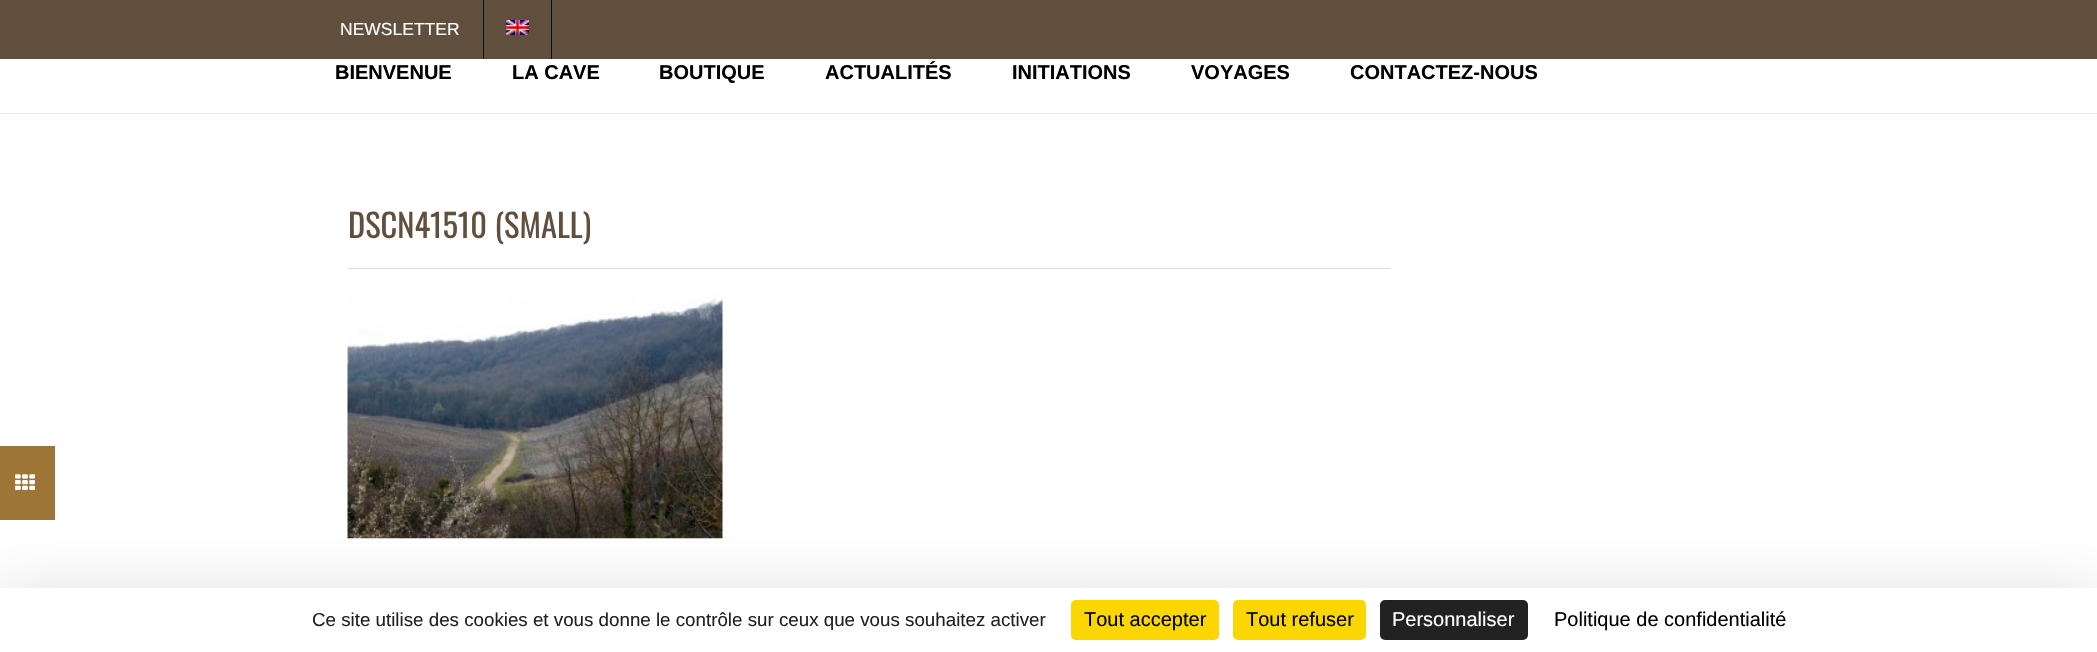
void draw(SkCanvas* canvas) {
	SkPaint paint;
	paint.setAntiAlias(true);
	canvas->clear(0xffffffff);
	paint.setColor(0xff604f3d);
	canvas->drawRect(SkRect::MakeXYWH(0, 0, 2097, 59), paint);
	paint.setColor(0xff0f0f0f);
	canvas->drawRect(SkRect::MakeXYWH(483, 0, 1, 59), paint);
	SkFont f1(fontMgr->matchFamilyStyle("Liberation Sans", SkFontStyle::Normal()), 17.5);
	f1.setSubpixel(true);
	paint.setColor(0xffffffff);
	canvas->drawString("NEWSLETTER", 340, 35, f1, paint);
	paint.setColor(0xff0f0f0f);
	canvas->drawRect(SkRect::MakeXYWH(551, 0, 1, 59), paint);
	canvas->drawImageRect(SkImages::DeferredFromEncodedData(SkData::MakeFromFileName("img1.png")), SkRect::MakeXYWH(506, 20, 23, 15), SkSamplingOptions());
	paint.setColor(0xffeae9e9);
	canvas->drawRect(SkRect::MakeXYWH(0, 113, 2097, 1), paint);
	SkFont f2(fontMgr->matchFamilyStyle("Liberation Sans", SkFontStyle::Bold()), 20);
	f2.setSubpixel(true);
	paint.setColor(0xff000000);
	canvas->drawString("BIENVENUE", 335, 79, f2, paint);
	canvas->drawString("LA CAVE", 512, 79, f2, paint);
	canvas->drawString("BOUTIQUE", 659, 79, f2, paint);
	canvas->drawString("ACTUALITÉS", 825, 79, f2, paint);
	canvas->drawString("INITIATIONS", 1012, 79, f2, paint);
	canvas->drawString("VOYAGES", 1191, 79, f2, paint);
	canvas->drawString("CONTACTEZ-NOUS", 1350, 79, f2, paint);
	paint.setColor(0xffdfdcd6);
	canvas->drawRect(SkRect::MakeXYWH(348, 268, 1042, 1), paint);
	SkFont f3(fontMgr->matchFamilyStyle("Oswald", SkFontStyle::Normal()), 32.5);
	f3.setSubpixel(true);
	paint.setColor(0xff604f3d);
	canvas->drawString("DSCN41510 (SMALL)", 348, 238, f3, paint);
	canvas->drawImageRect(SkImages::DeferredFromEncodedData(SkData::MakeFromFileName("img2.png")), SkRect::MakeXYWH(347, 293, 376, 246), SkSamplingOptions());
	paint.setColor(0xff9d7535);
	canvas->drawRect(SkRect::MakeXYWH(0, 446, 55, 74), paint);
	canvas->drawImageRect(SkImages::DeferredFromEncodedData(SkData::MakeFromFileName("img3.png")), SkRect::MakeXYWH(15, 474, 20, 16), SkSamplingOptions());
	paint.setColor(0x40000000);
	paint.setMaskFilter(SkMaskFilter::MakeBlur(kNormal_SkBlurStyle, 37.5));
	canvas->drawRect(SkRect::MakeXYWH(0, 613, 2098, 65), paint);
	paint.setMaskFilter(nullptr);
	paint.setColor(0xffffffff);
	canvas->drawRect(SkRect::MakeXYWH(0, 588, 2097, 64), paint);
	SkFont f4(fontMgr->matchFamilyStyle("Liberation Sans", SkFontStyle::Normal()), 18.75);
	f4.setSubpixel(true);
	paint.setColor(0xff222222);
	canvas->drawString("Ce site utilise des cookies et vous donne le contrôle sur ceux que vous souhaitez activer", 312, 626, f4, paint);
	paint.setColor(0xfffbd600);
	canvas->drawRoundRect(SkRect::MakeXYWH(1071, 600, 148, 40), 5, 5, paint);
	SkFont f5(fontMgr->matchFamilyStyle("Liberation Sans", SkFontStyle::Normal()), 20);
	f5.setSubpixel(true);
	paint.setColor(0xff000000);
	canvas->drawString("Tout accepter", 1084, 626, f5, paint);
	paint.setColor(0xfffbd600);
	canvas->drawRoundRect(SkRect::MakeXYWH(1233, 600, 133, 40), 5, 5, paint);
	paint.setColor(0xff000000);
	canvas->drawString("Tout refuser", 1246, 626, f5, paint);
	paint.setColor(0xff222222);
	canvas->drawRoundRect(SkRect::MakeXYWH(1380, 600, 148, 40), 5, 5, paint);
	paint.setColor(0xffffffff);
	canvas->drawString("Personnaliser", 1392, 626, f5, paint);
	paint.setColor(0xff000000);
	canvas->drawString("Politique de confidentialité", 1554, 626, f5, paint);
}
